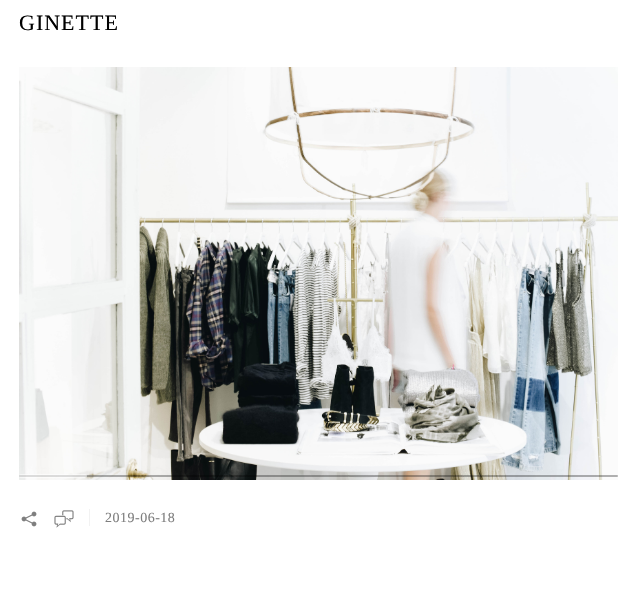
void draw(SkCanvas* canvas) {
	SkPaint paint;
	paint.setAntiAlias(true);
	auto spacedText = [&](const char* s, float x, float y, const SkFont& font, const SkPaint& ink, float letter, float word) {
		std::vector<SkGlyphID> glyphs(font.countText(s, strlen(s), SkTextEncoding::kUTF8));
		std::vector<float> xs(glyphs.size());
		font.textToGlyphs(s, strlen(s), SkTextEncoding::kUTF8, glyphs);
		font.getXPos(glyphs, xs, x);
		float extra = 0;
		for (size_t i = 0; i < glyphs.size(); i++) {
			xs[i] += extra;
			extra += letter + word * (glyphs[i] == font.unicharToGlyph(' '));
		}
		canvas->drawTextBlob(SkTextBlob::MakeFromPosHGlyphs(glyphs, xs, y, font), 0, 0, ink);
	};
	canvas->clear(0xffffffff);
	SkFont f1(fontMgr->matchFamilyStyle("Liberation Serif", SkFontStyle::Normal()), 22);
	f1.setSubpixel(true);
	paint.setColor(0xff000000);
	spacedText("GINETTE", 19, 30, f1, paint, 1, 0);
	canvas->drawImageRect(SkImages::DeferredFromEncodedData(SkData::MakeFromFileName("img1.png")), SkRect::MakeXYWH(19, 67, 599, 413), SkSamplingOptions());
	paint.setColor(0x4d000000);
	canvas->drawRoundRect(SkRect::MakeXYWH(19, 475, 599, 2), 1, 1, paint);
	paint.setColor(0x8fffffff);
	canvas->drawRoundRect(SkRect::MakeXYWH(19, 474, 68, 4), 2, 2, paint);
	canvas->drawImageRect(SkImages::DeferredFromEncodedData(SkData::MakeFromFileName("img2.png")), SkRect::MakeXYWH(21, 511, 16, 16), SkSamplingOptions());
	canvas->drawImageRect(SkImages::DeferredFromEncodedData(SkData::MakeFromFileName("img3.png")), SkRect::MakeXYWH(54, 510, 20, 18), SkSamplingOptions());
	paint.setColor(0xfff2f2f2);
	canvas->drawRect(SkRect::MakeXYWH(89, 509, 1, 17), paint);
	SkFont f2(fontMgr->matchFamilyStyle("Liberation Serif", SkFontStyle::Normal()), 14);
	f2.setSubpixel(true);
	paint.setColor(0xff7e7e7e);
	spacedText("2019-06-18", 105, 522, f2, paint, 0.5, 0);
}
